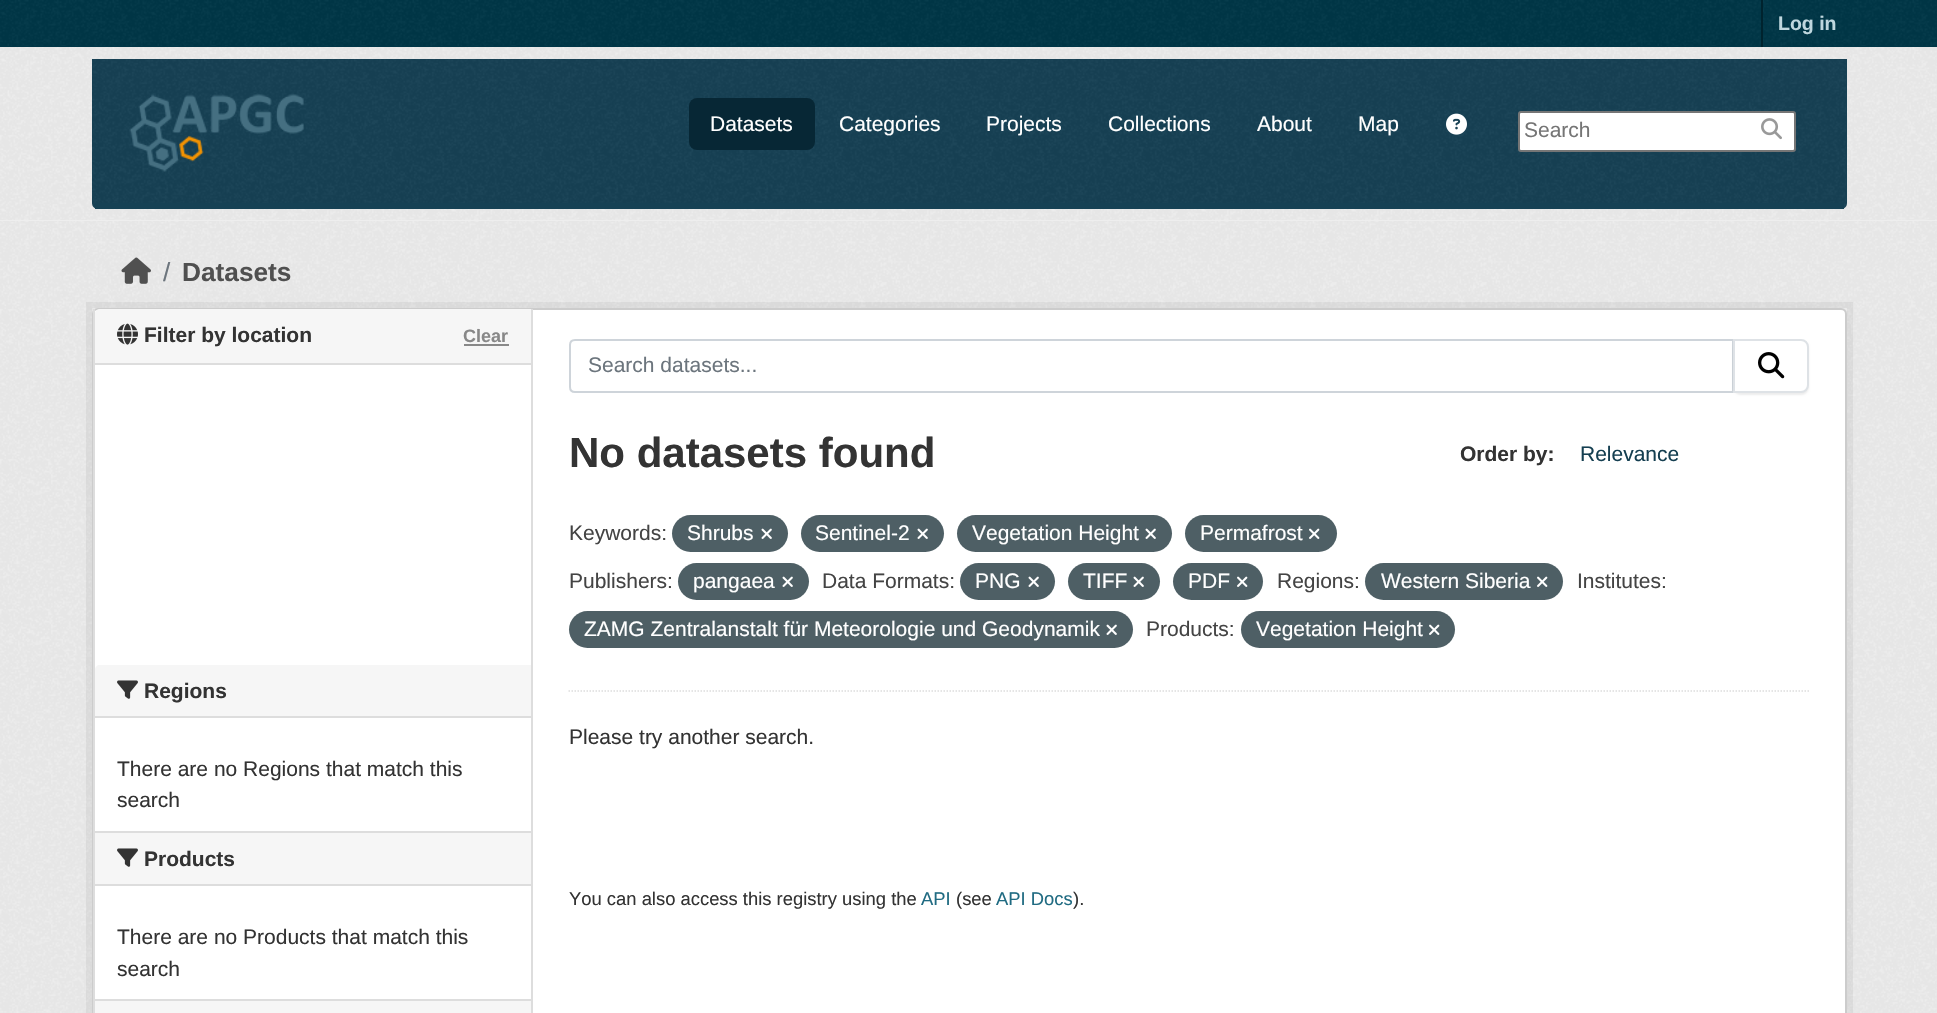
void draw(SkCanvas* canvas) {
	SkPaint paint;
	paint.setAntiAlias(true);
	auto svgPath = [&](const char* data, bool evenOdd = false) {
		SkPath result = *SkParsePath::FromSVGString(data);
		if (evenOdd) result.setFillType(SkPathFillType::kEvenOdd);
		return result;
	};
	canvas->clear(0xff003647);
	canvas->drawImageRect(SkImages::DeferredFromEncodedData(SkData::MakeFromFileName("img1.png")), SkRect::MakeXYWH(0, 0, 1937, 46), SkSamplingOptions());
	paint.setColor(0xff00232e);
	canvas->drawRect(SkRect::MakeXYWH(1761, 0, 2, 47), paint);
	SkFont f1(fontMgr->matchFamilyStyle("Liberation Sans", SkFontStyle::Bold()), 19.5);
	f1.setSubpixel(true);
	paint.setColor(0xffbfd7de);
	canvas->drawString("Log in", 1778, 30, f1, paint);
	paint.setColor(0xffeeeeee);
	canvas->drawRect(SkRect::MakeXYWH(0, 47, 1937, 966), paint);
	canvas->drawImageRect(SkImages::DeferredFromEncodedData(SkData::MakeFromFileName("img2.png")), SkRect::MakeXYWH(0, 47, 1937, 173), SkSamplingOptions());
	paint.setColor(0xff164154);
	canvas->drawPath(svgPath("M92 59H1847V203C1847 206.5 1844.5 209 1841 209H98C94.5 209 92 206.5 92 203Z"), paint);
	canvas->drawImageRect(SkImages::DeferredFromEncodedData(SkData::MakeFromFileName("img3.png")), SkRect::MakeXYWH(92, 59, 1754, 148), SkSamplingOptions());
	canvas->drawRect(SkRect::MakeXYWH(95, 203, 1749, 6), paint);
	canvas->drawImageRect(SkImages::DeferredFromEncodedData(SkData::MakeFromFileName("img4.png")), SkRect::MakeXYWH(129, 94, 175, 78), SkSamplingOptions());
	paint.setColor(0xff072735);
	canvas->drawRoundRect(SkRect::MakeXYWH(689, 98, 126, 52), 8, 8, paint);
	SkFont f2(fontMgr->matchFamilyStyle("Liberation Sans", SkFontStyle::Normal()), 21);
	f2.setSubpixel(true);
	paint.setColor(0xffffffff);
	canvas->drawString("Datasets", 710, 131, f2, paint);
	canvas->drawString("Categories", 839, 131, f2, paint);
	canvas->drawString("Projects", 986, 131, f2, paint);
	canvas->drawString("Collections", 1108, 131, f2, paint);
	canvas->drawString("About", 1257, 131, f2, paint);
	canvas->drawString("Map", 1358, 131, f2, paint);
	canvas->drawImageRect(SkImages::DeferredFromEncodedData(SkData::MakeFromFileName("img5.png")), SkRect::MakeXYWH(1446, 113, 21, 22), SkSamplingOptions());
	canvas->drawRoundRect(SkRect::MakeXYWH(1519, 112, 276, 39), 2, 2, paint);
	paint.setStroke(true);
	paint.setStrokeWidth(2);
	paint.setColor(0xff767676);
	canvas->drawRoundRect(SkRect::MakeXYWH(1519, 112, 276, 39), 2, 2, paint);
	paint.setStroke(false);
	paint.setColor(0xff757575);
	canvas->drawString("Search", 1524, 137, f2, paint);
	canvas->drawImageRect(SkImages::DeferredFromEncodedData(SkData::MakeFromFileName("img6.png")), SkRect::MakeXYWH(1761, 118, 21, 22), SkSamplingOptions());
	canvas->drawImageRect(SkImages::DeferredFromEncodedData(SkData::MakeFromFileName("img7.png")), SkRect::MakeXYWH(0, 221, 1937, 792), SkSamplingOptions());
	canvas->drawImageRect(SkImages::DeferredFromEncodedData(SkData::MakeFromFileName("img8.png")), SkRect::MakeXYWH(121, 257, 30, 27), SkSamplingOptions());
	SkFont f3(fontMgr->matchFamilyStyle("Liberation Sans", SkFontStyle::Normal()), 26.25);
	f3.setSubpixel(true);
	paint.setColor(0xff6c757d);
	canvas->drawString("/", 163, 281, f3, paint);
	SkFont f4(fontMgr->matchFamilyStyle("Liberation Sans", SkFontStyle::Bold()), 26.25);
	f4.setSubpixel(true);
	paint.setColor(0xff505050);
	canvas->drawString("Datasets", 182, 281, f4, paint);
	paint.setStroke(true);
	paint.setStrokeWidth(6);
	paint.setColor(0x0d000000);
	canvas->drawRect(SkRect::MakeXYWH(89, 305, 1761, 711), paint);
	paint.setStroke(false);
	paint.setColor(0xffffffff);
	canvas->drawRoundRect(SkRect::MakeXYWH(93, 309, 1753, 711), 5, 5, paint);
	paint.setStroke(true);
	paint.setStrokeWidth(2);
	paint.setColor(0xffcccccc);
	canvas->drawRoundRect(SkRect::MakeXYWH(93, 309, 1753, 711), 5, 5, paint);
	paint.setStroke(false);
	paint.setColor(0xffdddddd);
	canvas->drawRect(SkRect::MakeXYWH(93, 309, 2, 704), paint);
	paint.setColor(0xfff6f6f6);
	canvas->drawPath(svgPath("M100 309H531V365H95V314C95 311 97 309 100 309Z"), paint);
	paint.setColor(0xffdddddd);
	canvas->drawRect(SkRect::MakeXYWH(95, 363, 436, 2), paint);
	canvas->drawImageRect(SkImages::DeferredFromEncodedData(SkData::MakeFromFileName("img9.png")), SkRect::MakeXYWH(117, 323, 21, 22), SkSamplingOptions());
	SkFont f5(fontMgr->matchFamilyStyle("Liberation Sans", SkFontStyle::Bold()), 21);
	f5.setSubpixel(true);
	paint.setColor(0xff333333);
	canvas->drawString("Filter by location", 144, 342, f5, paint);
	SkFont f6(fontMgr->matchFamilyStyle("Liberation Sans", SkFontStyle::Bold()), 18);
	f6.setSubpixel(true);
	paint.setColor(0xff888888);
	canvas->drawString("Clear", 463, 342, f6, paint);
	canvas->drawRect(SkRect::MakeXYWH(464, 344, 45, 2), paint);
	paint.setColor(0xfff6f6f6);
	canvas->drawPath(svgPath("M100 665H531V717H95V670C95 667 97 665 100 665Z"), paint);
	paint.setColor(0xffdddddd);
	canvas->drawRect(SkRect::MakeXYWH(95, 716, 436, 2), paint);
	canvas->drawImageRect(SkImages::DeferredFromEncodedData(SkData::MakeFromFileName("img10.png")), SkRect::MakeXYWH(117, 680, 21, 19), SkSamplingOptions());
	paint.setColor(0xff333333);
	canvas->drawString("Regions", 144, 698, f5, paint);
	canvas->drawString("There are no Regions that match this", 117, 776, f2, paint);
	canvas->drawString("search", 117, 807, f2, paint);
	paint.setColor(0xfff6f6f6);
	canvas->drawRect(SkRect::MakeXYWH(95, 833, 436, 51), paint);
	paint.setColor(0xffdddddd);
	canvas->drawRect(SkRect::MakeXYWH(95, 831, 436, 2), paint);
	canvas->drawRect(SkRect::MakeXYWH(95, 884, 436, 2), paint);
	canvas->drawImageRect(SkImages::DeferredFromEncodedData(SkData::MakeFromFileName("img10.png")), SkRect::MakeXYWH(117, 848, 21, 19), SkSamplingOptions());
	paint.setColor(0xff333333);
	canvas->drawString("Products", 144, 866, f5, paint);
	canvas->drawString("There are no Products that match this", 117, 944, f2, paint);
	canvas->drawString("search", 117, 976, f2, paint);
	paint.setColor(0xfff6f6f6);
	canvas->drawRect(SkRect::MakeXYWH(95, 1001, 436, 12), paint);
	paint.setColor(0xffdddddd);
	canvas->drawRect(SkRect::MakeXYWH(95, 999, 436, 2), paint);
	canvas->drawRect(SkRect::MakeXYWH(531, 309, 2, 704), paint);
	paint.setStroke(true);
	paint.setStrokeWidth(1.5);
	paint.setPathEffect(SkDashPathEffect::Make({{1.5f, 1.5f}}, 0));
	canvas->drawPath(svgPath("M568.5 691H1809"), paint);
	paint.setPathEffect(nullptr);
	paint.setStrokeWidth(2);
	paint.setColor(0xffced4da);
	canvas->drawPath(svgPath("M575 340H1733V392H575C572 392 570 390 570 387V345C570 342 572 340 575 340Z"), paint);
	paint.setStroke(false);
	paint.setColor(0xff6c757d);
	canvas->drawString("Search datasets...", 588, 372, f2, paint);
	paint.setColor(0x12000000);
	paint.setMaskFilter(SkMaskFilter::MakeBlur(kNormal_SkBlurStyle, 1));
	canvas->drawRoundRect(SkRect::MakeXYWH(1733, 341, 76, 54), 8, 8, paint);
	paint.setMaskFilter(nullptr);
	paint.setColor(0xffffffff);
	canvas->drawPath(svgPath("M1734 340H1801C1805 340 1808 343 1808 347V385C1808 389 1805 392 1801 392H1734Z"), paint);
	paint.setStroke(true);
	paint.setColor(0xffdee2e6);
	canvas->drawPath(svgPath("M1734 340H1801C1805 340 1808 343 1808 347V385C1808 389 1805 392 1801 392H1734Z"), paint);
	canvas->drawImageRect(SkImages::DeferredFromEncodedData(SkData::MakeFromFileName("img11.png")), SkRect::MakeXYWH(1758, 352, 27, 27), SkSamplingOptions());
	SkFont f7(fontMgr->matchFamilyStyle("Liberation Sans", SkFontStyle::Bold()), 42);
	f7.setSubpixel(true);
	paint.setStroke(false);
	paint.setColor(0xff333333);
	canvas->drawString("No datasets found", 569, 467, f7, paint);
	canvas->drawString("Order by:", 1460, 461, f5, paint);
	paint.setColor(0xff153f51);
	canvas->drawString("Relevance", 1580, 461, f2, paint);
	paint.setColor(0xff444444);
	canvas->drawString("Keywords:", 569, 540, f2, paint);
	paint.setColor(0xff4e5f65);
	canvas->drawRoundRect(SkRect::MakeXYWH(672, 515, 116, 37), 18.5, 18.5, paint);
	paint.setColor(0xffffffff);
	canvas->drawString("Shrubs", 687, 540, f2, paint);
	canvas->drawImageRect(SkImages::DeferredFromEncodedData(SkData::MakeFromFileName("img12.png")), SkRect::MakeXYWH(761, 528, 11, 11), SkSamplingOptions());
	paint.setColor(0xff4e5f65);
	canvas->drawRoundRect(SkRect::MakeXYWH(801, 515, 143, 37), 18.5, 18.5, paint);
	paint.setColor(0xffffffff);
	canvas->drawString("Sentinel-2", 815, 540, f2, paint);
	canvas->drawImageRect(SkImages::DeferredFromEncodedData(SkData::MakeFromFileName("img12.png")), SkRect::MakeXYWH(917, 528, 11, 11), SkSamplingOptions());
	paint.setColor(0xff4e5f65);
	canvas->drawRoundRect(SkRect::MakeXYWH(957, 515, 215, 37), 18.5, 18.5, paint);
	paint.setColor(0xffffffff);
	canvas->drawString("Vegetation Height", 972, 540, f2, paint);
	canvas->drawImageRect(SkImages::DeferredFromEncodedData(SkData::MakeFromFileName("img12.png")), SkRect::MakeXYWH(1145, 528, 11, 11), SkSamplingOptions());
	paint.setColor(0xff4e5f65);
	canvas->drawRoundRect(SkRect::MakeXYWH(1185, 515, 152, 37), 18.5, 18.5, paint);
	paint.setColor(0xffffffff);
	canvas->drawString("Permafrost", 1200, 540, f2, paint);
	canvas->drawImageRect(SkImages::DeferredFromEncodedData(SkData::MakeFromFileName("img13.png")), SkRect::MakeXYWH(1309, 528, 11, 11), SkSamplingOptions());
	paint.setColor(0xff444444);
	canvas->drawString("Publishers:", 569, 588, f2, paint);
	paint.setColor(0xff4e5f65);
	canvas->drawRoundRect(SkRect::MakeXYWH(678, 563, 131, 37), 18.5, 18.5, paint);
	paint.setColor(0xffffffff);
	canvas->drawString("pangaea", 693, 588, f2, paint);
	canvas->drawImageRect(SkImages::DeferredFromEncodedData(SkData::MakeFromFileName("img12.png")), SkRect::MakeXYWH(782, 576, 11, 11), SkSamplingOptions());
	paint.setColor(0xff444444);
	canvas->drawString("Data Formats:", 822, 588, f2, paint);
	paint.setColor(0xff4e5f65);
	canvas->drawRoundRect(SkRect::MakeXYWH(960, 563, 95, 37), 18.5, 18.5, paint);
	paint.setColor(0xffffffff);
	canvas->drawString("PNG", 975, 588, f2, paint);
	canvas->drawImageRect(SkImages::DeferredFromEncodedData(SkData::MakeFromFileName("img12.png")), SkRect::MakeXYWH(1028, 576, 11, 11), SkSamplingOptions());
	paint.setColor(0xff4e5f65);
	canvas->drawRoundRect(SkRect::MakeXYWH(1068, 563, 92, 37), 18.5, 18.5, paint);
	paint.setColor(0xffffffff);
	canvas->drawString("TIFF", 1083, 588, f2, paint);
	canvas->drawImageRect(SkImages::DeferredFromEncodedData(SkData::MakeFromFileName("img12.png")), SkRect::MakeXYWH(1133, 576, 11, 11), SkSamplingOptions());
	paint.setColor(0xff4e5f65);
	canvas->drawRoundRect(SkRect::MakeXYWH(1173, 563, 90, 37), 18.5, 18.5, paint);
	paint.setColor(0xffffffff);
	canvas->drawString("PDF", 1188, 588, f2, paint);
	canvas->drawImageRect(SkImages::DeferredFromEncodedData(SkData::MakeFromFileName("img13.png")), SkRect::MakeXYWH(1237, 576, 11, 11), SkSamplingOptions());
	paint.setColor(0xff444444);
	canvas->drawString("Regions:", 1277, 588, f2, paint);
	paint.setColor(0xff4e5f65);
	canvas->drawRoundRect(SkRect::MakeXYWH(1365, 563, 198, 37), 18.5, 18.5, paint);
	paint.setColor(0xffffffff);
	canvas->drawString("Western Siberia", 1381, 588, f2, paint);
	canvas->drawImageRect(SkImages::DeferredFromEncodedData(SkData::MakeFromFileName("img13.png")), SkRect::MakeXYWH(1537, 576, 11, 11), SkSamplingOptions());
	paint.setColor(0xff444444);
	canvas->drawString("Institutes:", 1577, 588, f2, paint);
	paint.setColor(0xff4e5f65);
	canvas->drawRoundRect(SkRect::MakeXYWH(569, 611, 564, 37), 18.5, 18.5, paint);
	paint.setColor(0xffffffff);
	canvas->drawString("ZAMG Zentralanstalt für Meteorologie und Geodynamik", 584, 636, f2, paint);
	canvas->drawImageRect(SkImages::DeferredFromEncodedData(SkData::MakeFromFileName("img12.png")), SkRect::MakeXYWH(1106, 624, 11, 11), SkSamplingOptions());
	paint.setColor(0xff444444);
	canvas->drawString("Products:", 1146, 636, f2, paint);
	paint.setColor(0xff4e5f65);
	canvas->drawRoundRect(SkRect::MakeXYWH(1241, 611, 214, 37), 18.5, 18.5, paint);
	paint.setColor(0xffffffff);
	canvas->drawString("Vegetation Height", 1256, 636, f2, paint);
	canvas->drawImageRect(SkImages::DeferredFromEncodedData(SkData::MakeFromFileName("img13.png")), SkRect::MakeXYWH(1429, 624, 11, 11), SkSamplingOptions());
	paint.setColor(0xff333333);
	canvas->drawString("Please try another search.", 569, 744, f2, paint);
	SkFont f8(fontMgr->matchFamilyStyle("Liberation Sans", SkFontStyle::Normal()), 18.4);
	f8.setSubpixel(true);
	canvas->drawString("You can also access this registry using the", 569, 905, f8, paint);
	paint.setColor(0xff206b82);
	canvas->drawString("API", 921, 905, f8, paint);
	paint.setColor(0xff333333);
	canvas->drawString("(see", 956, 905, f8, paint);
	paint.setColor(0xff206b82);
	canvas->drawString("API Docs", 996, 905, f8, paint);
	paint.setColor(0xff333333);
	canvas->drawString(").", 1073, 905, f8, paint);
}
